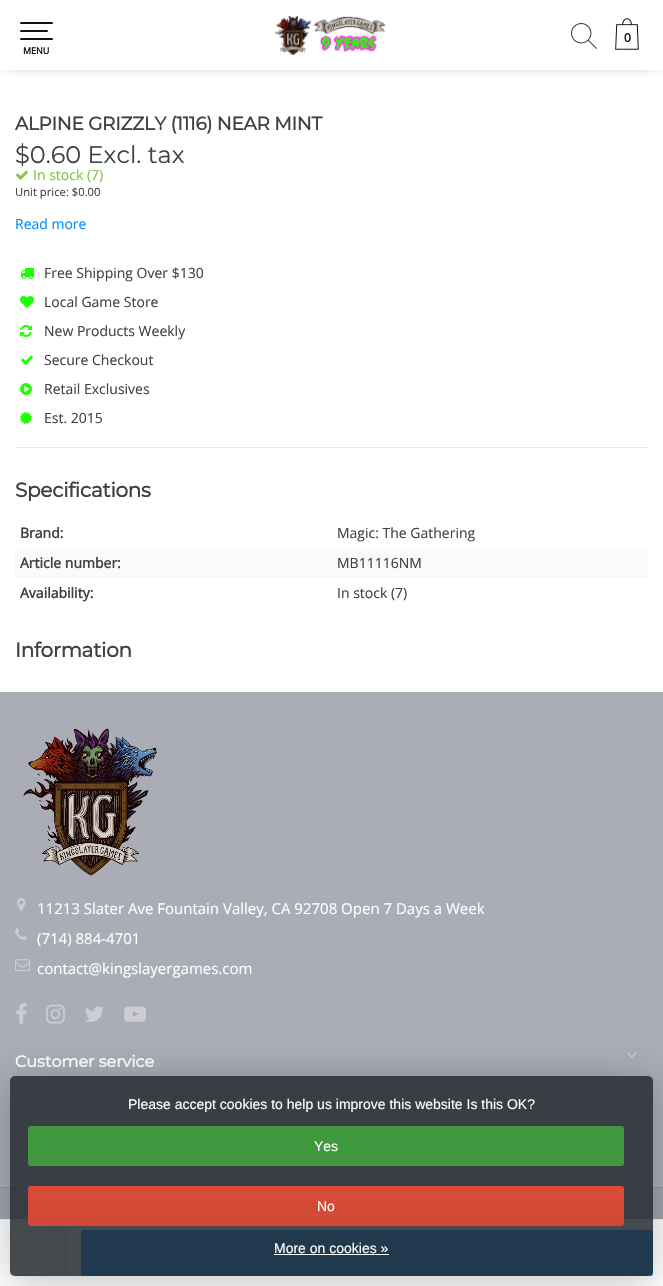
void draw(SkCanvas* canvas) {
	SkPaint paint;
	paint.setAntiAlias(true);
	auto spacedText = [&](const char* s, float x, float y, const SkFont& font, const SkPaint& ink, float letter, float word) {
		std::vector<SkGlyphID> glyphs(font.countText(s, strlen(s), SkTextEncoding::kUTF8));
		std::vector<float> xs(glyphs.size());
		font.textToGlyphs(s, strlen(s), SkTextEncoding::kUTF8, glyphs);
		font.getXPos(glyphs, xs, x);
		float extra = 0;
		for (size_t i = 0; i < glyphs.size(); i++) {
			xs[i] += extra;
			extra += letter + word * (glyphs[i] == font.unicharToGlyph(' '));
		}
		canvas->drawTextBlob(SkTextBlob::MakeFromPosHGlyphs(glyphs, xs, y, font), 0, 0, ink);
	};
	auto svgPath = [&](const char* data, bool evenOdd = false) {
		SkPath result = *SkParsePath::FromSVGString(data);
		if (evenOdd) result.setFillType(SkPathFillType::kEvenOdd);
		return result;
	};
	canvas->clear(0xffffffff);
	paint.setColor(0xff000000);
	paint.setMaskFilter(SkMaskFilter::MakeBlur(kNormal_SkBlurStyle, 10));
	canvas->drawRect(SkRect::MakeXYWH(6, 6, 651, 48), paint);
	paint.setMaskFilter(nullptr);
	paint.setMaskFilter(SkMaskFilter::MakeBlur(kNormal_SkBlurStyle, 10));
	canvas->drawRect(SkRect::MakeXYWH(6, 6, 651, 48), paint);
	paint.setMaskFilter(nullptr);
	paint.setColor(0xffffffff);
	canvas->drawRect(SkRect::MakeXYWH(0, 0, 663, 70), paint);
	canvas->drawImageRect(SkImages::DeferredFromEncodedData(SkData::MakeFromFileName("img1.png")), SkRect::MakeXYWH(275, 16, 111, 39), SkSamplingOptions());
	canvas->drawImageRect(SkImages::DeferredFromEncodedData(SkData::MakeFromFileName("img2.png")), SkRect::MakeXYWH(571, 23, 26, 26), SkSamplingOptions());
	canvas->drawImageRect(SkImages::DeferredFromEncodedData(SkData::MakeFromFileName("img3.png")), SkRect::MakeXYWH(615, 18, 24, 32), SkSamplingOptions());
	SkFont f1(fontMgr->matchFamilyStyle("Open Sans", SkFontStyle::Bold()), 12);
	f1.setSubpixel(true);
	paint.setColor(0xff111111);
	canvas->drawString("0", 624, 42, f1, paint);
	canvas->drawRoundRect(SkRect::MakeXYWH(20, 22, 33, 2), 1, 1, paint);
	canvas->drawRoundRect(SkRect::MakeXYWH(20, 30, 28, 2), 1, 1, paint);
	canvas->drawRoundRect(SkRect::MakeXYWH(20, 38, 33, 2), 1, 1, paint);
	SkFont f2(fontMgr->matchFamilyStyle("Open Sans", SkFontStyle::Bold()), 9);
	f2.setSubpixel(true);
	canvas->drawString("MENU", 23, 54, f2, paint);
	SkFont f3(fontMgr->matchFamilyStyle("Montserrat", SkFontStyle::Bold()), 18.4);
	f3.setSubpixel(true);
	paint.setColor(0xff414141);
	spacedText("ALPINE GRIZZLY (1116) NEAR MINT", 15, 130, f3, paint, -0.25, 0);
	SkFont f4(fontMgr->matchFamilyStyle("Montserrat", SkFontStyle(100, SkFontStyle::kNormal_Width, SkFontStyle::kUpright_Slant)), 24);
	f4.setSubpixel(true);
	canvas->drawString("$0.60 Excl. tax", 15, 163, f4, paint);
	canvas->drawImageRect(SkImages::DeferredFromEncodedData(SkData::MakeFromFileName("img4.png")), SkRect::MakeXYWH(16, 170, 12, 10), SkSamplingOptions());
	SkFont f5(fontMgr->matchFamilyStyle("Open Sans", SkFontStyle::Normal()), 14);
	f5.setSubpixel(true);
	paint.setColor(0xff8bc34a);
	canvas->drawString("In stock (7)", 33, 180, f5, paint);
	SkFont f6(fontMgr->matchFamilyStyle("Open Sans", SkFontStyle::Normal()), 11.25);
	f6.setSubpixel(true);
	paint.setColor(0xff414141);
	canvas->drawString("Unit price: $0.00", 15, 196, f6, paint);
	paint.setColor(0xff018dff);
	canvas->drawString("Read more", 15, 229, f5, paint);
	canvas->drawImageRect(SkImages::DeferredFromEncodedData(SkData::MakeFromFileName("img5.png")), SkRect::MakeXYWH(20, 268, 14, 11), SkSamplingOptions());
	paint.setColor(0xff414141);
	canvas->drawString("Free Shipping Over $130", 44, 278, f5, paint);
	canvas->drawImageRect(SkImages::DeferredFromEncodedData(SkData::MakeFromFileName("img6.png")), SkRect::MakeXYWH(20, 296, 14, 12), SkSamplingOptions());
	canvas->drawString("Local Game Store", 44, 307, f5, paint);
	canvas->drawImageRect(SkImages::DeferredFromEncodedData(SkData::MakeFromFileName("img7.png")), SkRect::MakeXYWH(20, 325, 12, 12), SkSamplingOptions());
	canvas->drawString("New Products Weekly", 44, 336, f5, paint);
	canvas->drawImageRect(SkImages::DeferredFromEncodedData(SkData::MakeFromFileName("img8.png")), SkRect::MakeXYWH(21, 355, 12, 10), SkSamplingOptions());
	canvas->drawString("Secure Checkout", 44, 365, f5, paint);
	canvas->drawImageRect(SkImages::DeferredFromEncodedData(SkData::MakeFromFileName("img9.png")), SkRect::MakeXYWH(20, 383, 12, 12), SkSamplingOptions());
	canvas->drawString("Retail Exclusives", 44, 394, f5, paint);
	canvas->drawImageRect(SkImages::DeferredFromEncodedData(SkData::MakeFromFileName("img10.png")), SkRect::MakeXYWH(20, 412, 12, 12), SkSamplingOptions());
	canvas->drawString("Est. 2015", 44, 423, f5, paint);
	paint.setColor(0xffeaeaea);
	canvas->drawRect(SkRect::MakeXYWH(15, 447, 633, 1), paint);
	paint.setColor(0xfff4f4f4);
	canvas->drawRect(SkRect::MakeXYWH(0, 1219, 663, 1), paint);
	paint.setColor(0xffdddddd);
	canvas->drawRect(SkRect::MakeXYWH(11, 1230, 39, 1), paint);
	canvas->drawRect(SkRect::MakeXYWH(11, 1275, 39, 1), paint);
	canvas->drawRect(SkRect::MakeXYWH(10, 1231, 1, 44), paint);
	paint.setColor(0xfff7f7f7);
	canvas->drawPath(svgPath("M50 1230H64C65 1230 66 1231 66 1232V1272C66 1273 65 1274 64 1274H50Z"), paint);
	paint.setColor(0xffdddddd);
	canvas->drawRect(SkRect::MakeXYWH(50, 1230, 15, 1), paint);
	canvas->drawRect(SkRect::MakeXYWH(65, 1231, 1, 42), paint);
	canvas->drawRect(SkRect::MakeXYWH(50, 1273, 15, 1), paint);
	paint.setColor(0xff018dff);
	canvas->drawRoundRect(SkRect::MakeXYWH(81.5, 1230.5, 571, 45), 1.5, 1.5, paint);
	paint.setStroke(true);
	paint.setStrokeWidth(1);
	canvas->drawRoundRect(SkRect::MakeXYWH(81.5, 1230.5, 571, 45), 1.5, 1.5, paint);
	SkFont f7(fontMgr->matchFamilyStyle("Montserrat", SkFontStyle::Bold()), 20);
	f7.setSubpixel(true);
	paint.setStroke(false);
	paint.setColor(0xff414141);
	spacedText("Specifications", 15, 497, f7, paint, -0.25, 0);
	SkFont f8(fontMgr->matchFamilyStyle("Open Sans", SkFontStyle::Bold()), 14);
	f8.setSubpixel(true);
	canvas->drawString("Brand:", 20, 538, f8, paint);
	canvas->drawString("Magic: The Gathering", 337, 538, f5, paint);
	paint.setColor(0xfff9fafb);
	canvas->drawRect(SkRect::MakeXYWH(15, 548, 633, 30), paint);
	paint.setColor(0xff414141);
	canvas->drawString("Article number:", 20, 568, f8, paint);
	canvas->drawString("MB11116NM", 337, 568, f5, paint);
	canvas->drawString("Availability:", 20, 598, f8, paint);
	canvas->drawString("In stock (7)", 337, 598, f5, paint);
	spacedText("Information", 15, 657, f7, paint, -0.25, 0);
	paint.setColor(0xffaaadb5);
	canvas->drawRect(SkRect::MakeXYWH(0, 692, 663, 495), paint);
	canvas->drawImageRect(SkImages::DeferredFromEncodedData(SkData::MakeFromFileName("img11.png")), SkRect::MakeXYWH(23, 728, 134, 148), SkSamplingOptions());
	canvas->drawImageRect(SkImages::DeferredFromEncodedData(SkData::MakeFromFileName("img12.png")), SkRect::MakeXYWH(17, 898, 9, 13), SkSamplingOptions());
	SkFont f9(fontMgr->matchFamilyStyle("Open Sans", SkFontStyle::Normal()), 15);
	f9.setSubpixel(true);
	paint.setColor(0xffffffff);
	canvas->drawString("11213 Slater Ave Fountain Valley, CA 92708 Open 7 Days a Week", 37, 914, f9, paint);
	canvas->drawImageRect(SkImages::DeferredFromEncodedData(SkData::MakeFromFileName("img13.png")), SkRect::MakeXYWH(15, 928, 12, 12), SkSamplingOptions());
	canvas->drawString("(714) 884-4701", 37, 944, f9, paint);
	canvas->drawImageRect(SkImages::DeferredFromEncodedData(SkData::MakeFromFileName("img14.png")), SkRect::MakeXYWH(15, 959, 15, 12), SkSamplingOptions());
	canvas->drawString("contact@kingslayergames.com", 37, 974, f9, paint);
	canvas->drawImageRect(SkImages::DeferredFromEncodedData(SkData::MakeFromFileName("img15.png")), SkRect::MakeXYWH(16, 1003, 11, 21), SkSamplingOptions());
	canvas->drawImageRect(SkImages::DeferredFromEncodedData(SkData::MakeFromFileName("img16.png")), SkRect::MakeXYWH(46, 1004, 19, 20), SkSamplingOptions());
	canvas->drawImageRect(SkImages::DeferredFromEncodedData(SkData::MakeFromFileName("img17.png")), SkRect::MakeXYWH(85, 1006, 19, 16), SkSamplingOptions());
	canvas->drawImageRect(SkImages::DeferredFromEncodedData(SkData::MakeFromFileName("img18.png")), SkRect::MakeXYWH(124, 1006, 22, 16), SkSamplingOptions());
	SkFont f10(fontMgr->matchFamilyStyle("Montserrat", SkFontStyle::Bold()), 16);
	f10.setSubpixel(true);
	canvas->drawString("Customer service", 15, 1067, f10, paint);
	canvas->drawImageRect(SkImages::DeferredFromEncodedData(SkData::MakeFromFileName("img19.png")), SkRect::MakeXYWH(627, 1052, 10, 6), SkSamplingOptions());
	canvas->drawImageRect(SkImages::DeferredFromEncodedData(SkData::MakeFromFileName("img19.png")), SkRect::MakeXYWH(627, 1096, 10, 6), SkSamplingOptions());
	canvas->drawImageRect(SkImages::DeferredFromEncodedData(SkData::MakeFromFileName("img19.png")), SkRect::MakeXYWH(627, 1140, 10, 6), SkSamplingOptions());
	paint.setColor(0xff94969d);
	canvas->drawRect(SkRect::MakeXYWH(0, 1187, 663, 1), paint);
	paint.setColor(0xffa2a4ac);
	canvas->drawRect(SkRect::MakeXYWH(0, 1188, 663, 31), paint);
	canvas->save();
	canvas->clipPath(svgPath("M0 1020H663V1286H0ZM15 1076H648C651 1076 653 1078 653 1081V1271C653 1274 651 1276 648 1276H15C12 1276 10 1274 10 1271V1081C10 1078 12 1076 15 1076Z", true), true);
	paint.setColor(0x40000000);
	paint.setMaskFilter(SkMaskFilter::MakeBlur(kNormal_SkBlurStyle, 20));
	canvas->drawRoundRect(SkRect::MakeXYWH(10, 1081, 643, 200), 5, 5, paint);
	paint.setMaskFilter(nullptr);
	canvas->restore();
	paint.setColor(0xd9242a30);
	canvas->drawRoundRect(SkRect::MakeXYWH(10, 1076, 643, 200), 5, 5, paint);
	SkFont f11(fontMgr->matchFamilyStyle("Liberation Sans", SkFontStyle::Normal()), 14);
	f11.setSubpixel(true);
	paint.setColor(0xffffffff);
	canvas->drawString("Please accept cookies to help us improve this website Is this OK?", 128, 1109, f11, paint);
	paint.setColor(0xff40983f);
	canvas->drawRoundRect(SkRect::MakeXYWH(28, 1126, 596, 40), 3, 3, paint);
	paint.setColor(0xffffffff);
	canvas->drawString("Yes", 314, 1151, f11, paint);
	{
		const SkColor colors[] = {0xffdc4a38, 0xffd14836};
		const float stops[] = {0, 1};
		const SkPoint ends[] = {{326, 1186}, {326, 1226}};
		paint.setShader(SkGradientShader::MakeLinear(ends, colors, stops, 2, SkTileMode::kClamp));
		paint.setAlpha(255);
	}
	canvas->drawRoundRect(SkRect::MakeXYWH(28, 1186, 596, 40), 3, 3, paint);
	paint.setShader(nullptr);
	paint.setColor(0xffffffff);
	canvas->drawString("No", 317, 1211, f11, paint);
	canvas->drawString("More on cookies »", 274, 1253, f11, paint);
	canvas->drawRect(SkRect::MakeXYWH(274, 1254, 115, 1), paint);
}
